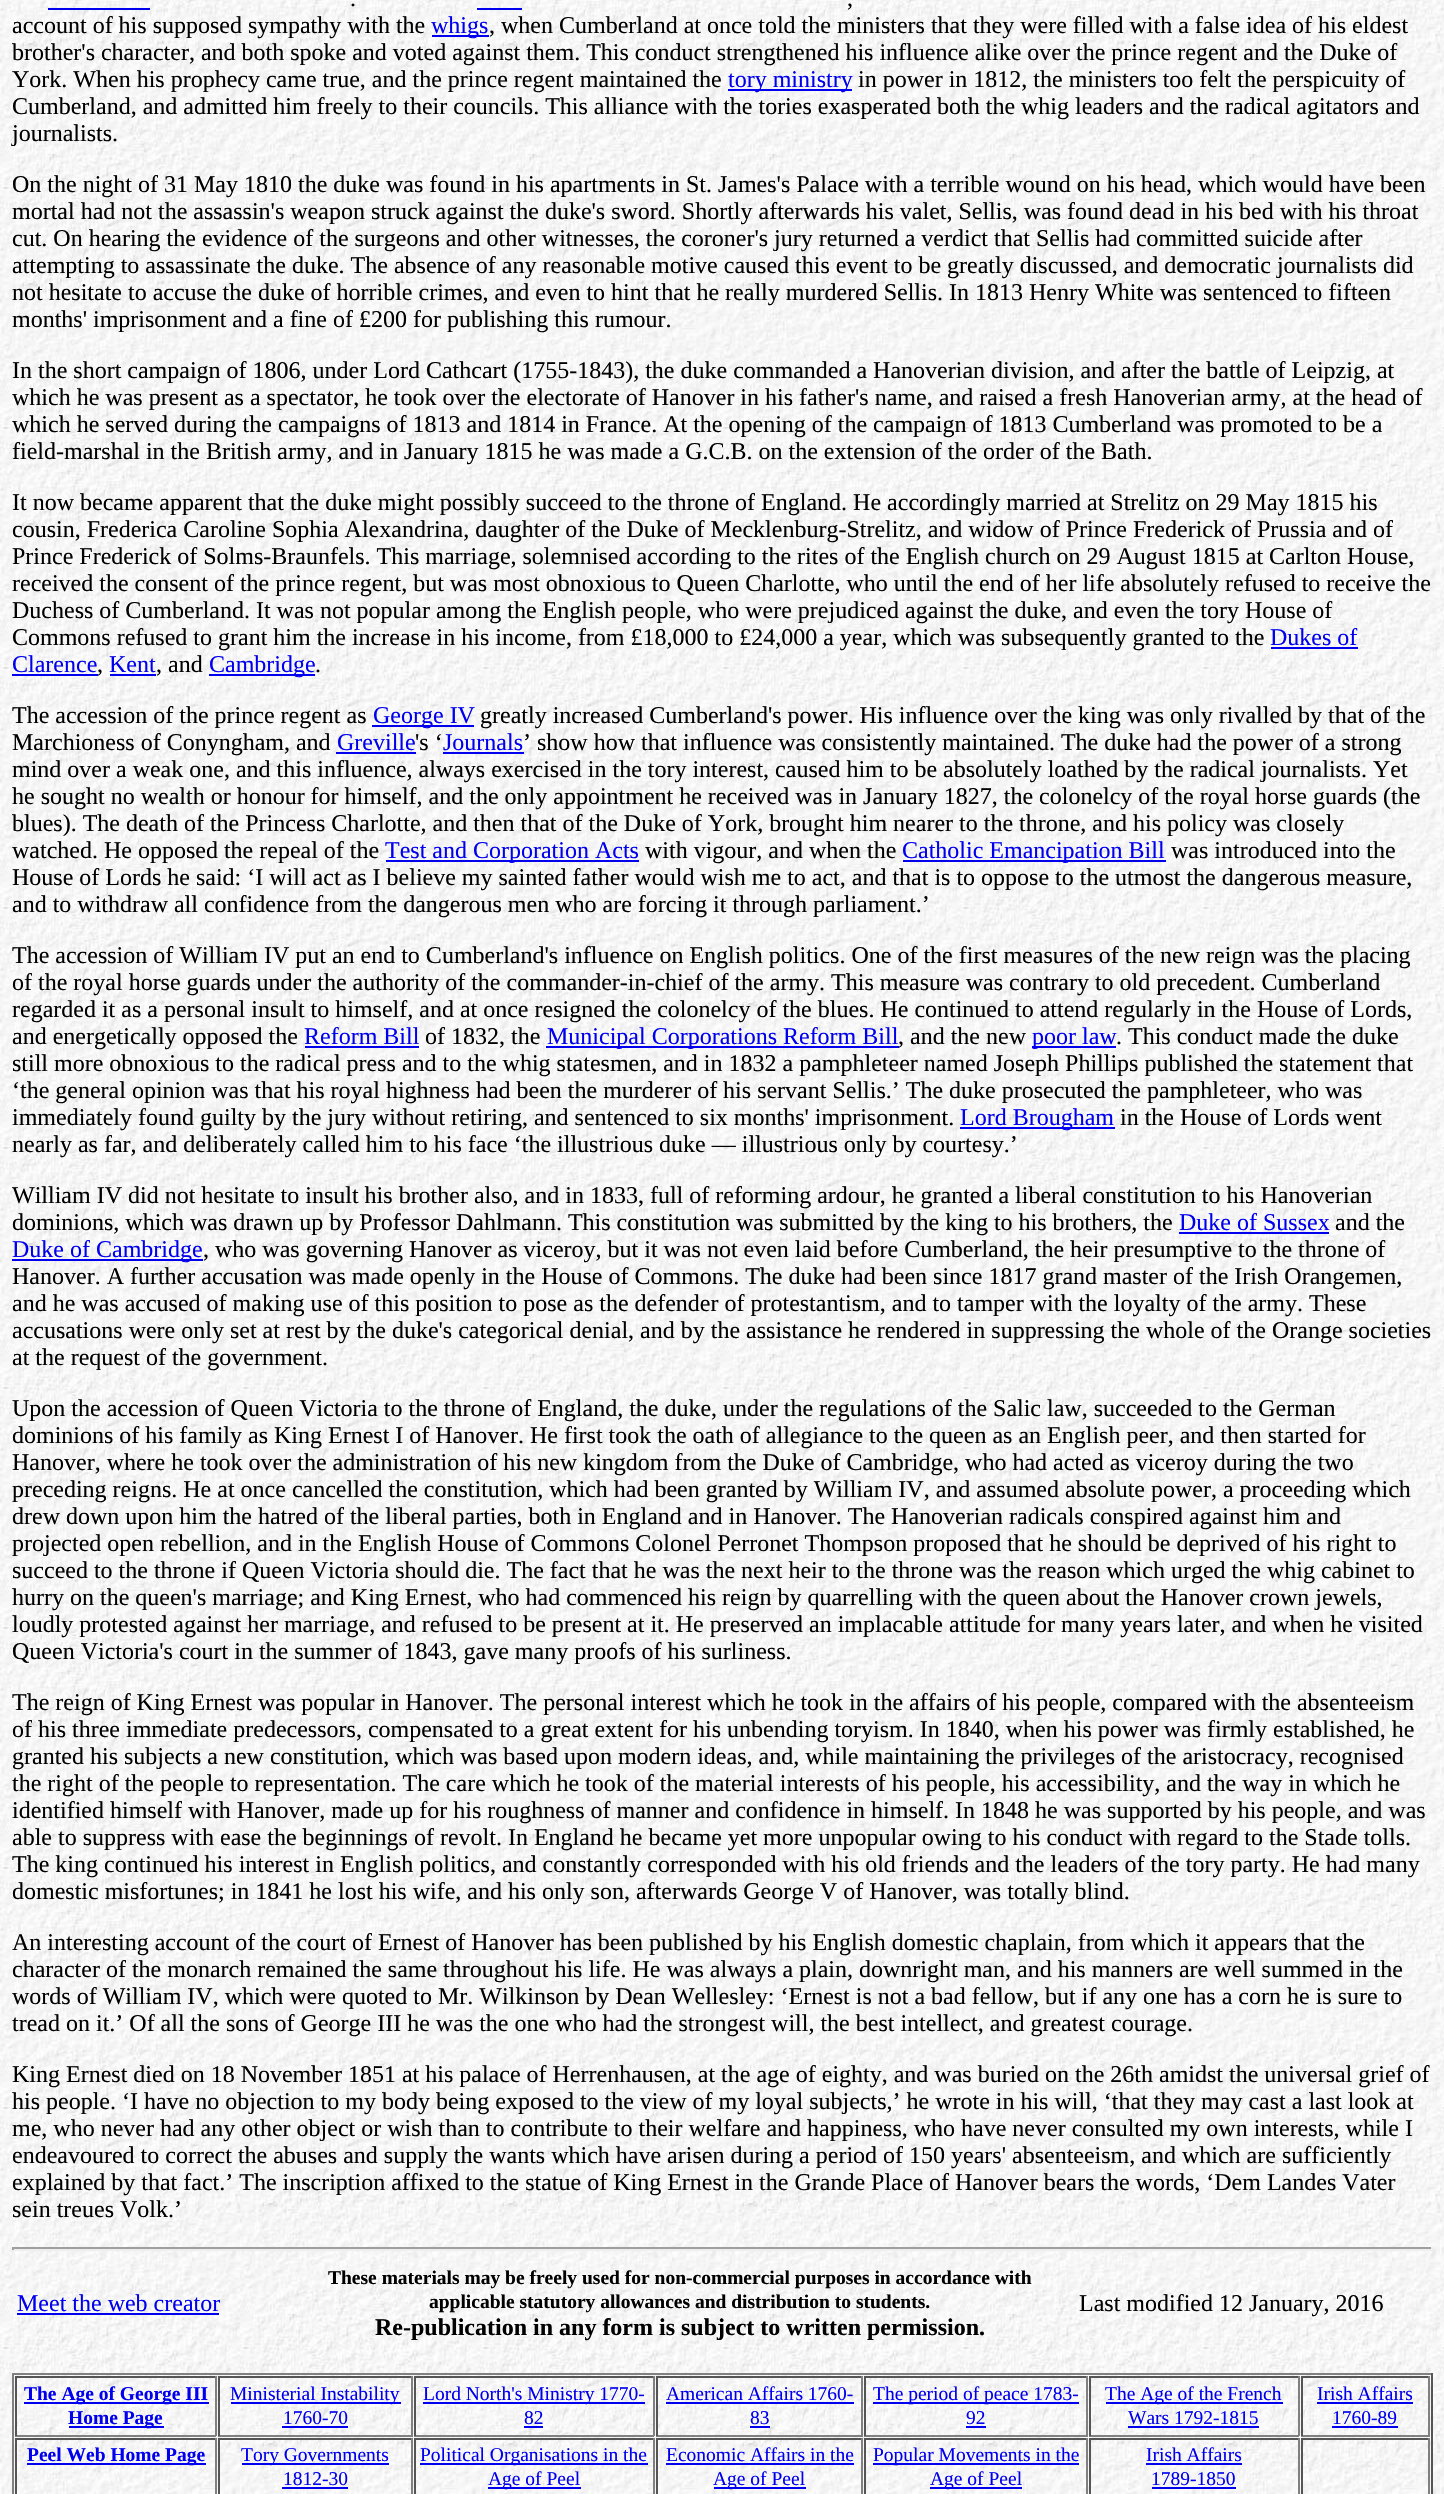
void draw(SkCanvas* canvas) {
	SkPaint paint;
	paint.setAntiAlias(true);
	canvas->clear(0xffffffff);
	canvas->drawImageRect(SkImages::DeferredFromEncodedData(SkData::MakeFromFileName("img1.png")), SkRect::MakeXYWH(0, 0, 1444, 2494), SkSamplingOptions());
	paint.setColor(0xff0000ee);
	canvas->drawRect(SkRect::MakeXYWH(48, 8, 102, 2), paint);
	SkFont f1(fontMgr->matchFamilyStyle("Liberation Serif", SkFontStyle::Normal()), 24);
	f1.setSubpixel(true);
	paint.setColor(0xff000000);
	canvas->drawString(".", 350, 6, f1, paint);
	paint.setColor(0xff0000ee);
	canvas->drawRect(SkRect::MakeXYWH(477, 8, 45, 2), paint);
	paint.setColor(0xff000000);
	canvas->drawString(",", 847, 6, f1, paint);
	canvas->drawString("account of his supposed sympathy with the", 12, 33, f1, paint);
	paint.setColor(0xff0000ee);
	canvas->drawRect(SkRect::MakeXYWH(432, 35, 57, 2), paint);
	canvas->drawString("whigs", 431, 33, f1, paint);
	paint.setColor(0xff000000);
	canvas->drawString(", when Cumberland at once told the ministers that they were filled with a false idea of his eldest", 489, 33, f1, paint);
	canvas->drawString("brother's character, and both spoke and voted against them. This conduct strengthened his influence alike over the prince regent and the Duke of", 12, 60, f1, paint);
	canvas->drawString("York. When his prophecy came true, and the prince regent maintained the", 12, 87, f1, paint);
	paint.setColor(0xff0000ee);
	canvas->drawRect(SkRect::MakeXYWH(728, 89, 124, 2), paint);
	canvas->drawString("tory ministry", 728, 87, f1, paint);
	paint.setColor(0xff000000);
	canvas->drawString("in power in 1812, the ministers too felt the perspicuity of", 858, 87, f1, paint);
	canvas->drawString("Cumberland, and admitted him freely to their councils. This alliance with the tories exasperated both the whig leaders and the radical agitators and", 12, 114, f1, paint);
	canvas->drawString("journalists.", 12, 141, f1, paint);
	canvas->drawString("On the night of 31 May 1810 the duke was found in his apartments in St. James's Palace with a terrible wound on his head, which would have been", 12, 192, f1, paint);
	canvas->drawString("mortal had not the assassin's weapon struck against the duke's sword. Shortly afterwards his valet, Sellis, was found dead in his bed with his throat", 12, 219, f1, paint);
	canvas->drawString("cut. On hearing the evidence of the surgeons and other witnesses, the coroner's jury returned a verdict that Sellis had committed suicide after", 12, 246, f1, paint);
	canvas->drawString("attempting to assassinate the duke. The absence of any reasonable motive caused this event to be greatly discussed, and democratic journalists did", 12, 273, f1, paint);
	canvas->drawString("not hesitate to accuse the duke of horrible crimes, and even to hint that he really murdered Sellis. In 1813 Henry White was sentenced to fifteen", 12, 300, f1, paint);
	canvas->drawString("months' imprisonment and a fine of £200 for publishing this rumour.", 12, 327, f1, paint);
	canvas->drawString("In the short campaign of 1806, under Lord Cathcart (1755-1843), the duke commanded a Hanoverian division, and after the battle of Leipzig, at", 12, 378, f1, paint);
	canvas->drawString("which he was present as a spectator, he took over the electorate of Hanover in his father's name, and raised a fresh Hanoverian army, at the head of", 12, 405, f1, paint);
	canvas->drawString("which he served during the campaigns of 1813 and 1814 in France. At the opening of the campaign of 1813 Cumberland was promoted to be a", 12, 432, f1, paint);
	canvas->drawString("field-marshal in the British army, and in January 1815 he was made a G.C.B. on the extension of the order of the Bath.", 12, 459, f1, paint);
	canvas->drawString("It now became apparent that the duke might possibly succeed to the throne of England. He accordingly married at Strelitz on 29 May 1815 his", 12, 510, f1, paint);
	canvas->drawString("cousin, Frederica Caroline Sophia Alexandrina, daughter of the Duke of Mecklenburg-Strelitz, and widow of Prince Frederick of Prussia and of", 12, 537, f1, paint);
	canvas->drawString("Prince Frederick of Solms-Braunfels. This marriage, solemnised according to the rites of the English church on 29 August 1815 at Carlton House,", 12, 564, f1, paint);
	canvas->drawString("received the consent of the prince regent, but was most obnoxious to Queen Charlotte, who until the end of her life absolutely refused to receive the", 12, 591, f1, paint);
	canvas->drawString("Duchess of Cumberland. It was not popular among the English people, who were prejudiced against the duke, and even the tory House of", 12, 618, f1, paint);
	canvas->drawString("Commons refused to grant him the increase in his income, from £18,000 to £24,000 a year, which was subsequently granted to the", 12, 645, f1, paint);
	paint.setColor(0xff0000ee);
	canvas->drawString("Dukes of", 1270, 645, f1, paint);
	canvas->drawRect(SkRect::MakeXYWH(1271, 647, 87, 2), paint);
	canvas->drawString("Clarence", 12, 672, f1, paint);
	canvas->drawRect(SkRect::MakeXYWH(12, 674, 86, 2), paint);
	paint.setColor(0xff000000);
	canvas->drawString(",", 97, 672, f1, paint);
	paint.setColor(0xff0000ee);
	canvas->drawString("Kent", 109, 672, f1, paint);
	canvas->drawRect(SkRect::MakeXYWH(110, 674, 46, 2), paint);
	paint.setColor(0xff000000);
	canvas->drawString(", and", 156, 672, f1, paint);
	paint.setColor(0xff0000ee);
	canvas->drawRect(SkRect::MakeXYWH(209, 674, 106, 2), paint);
	canvas->drawString("Cambridge", 209, 672, f1, paint);
	paint.setColor(0xff000000);
	canvas->drawString(".", 315, 672, f1, paint);
	canvas->drawString("The accession of the prince regent as", 12, 723, f1, paint);
	paint.setColor(0xff0000ee);
	canvas->drawRect(SkRect::MakeXYWH(372, 725, 102, 2), paint);
	canvas->drawString("George IV", 373, 723, f1, paint);
	paint.setColor(0xff000000);
	canvas->drawString("greatly increased Cumberland's power. His influence over the king was only rivalled by that of the", 480, 723, f1, paint);
	canvas->drawString("Marchioness of Conyngham, and", 12, 750, f1, paint);
	paint.setColor(0xff0000ee);
	canvas->drawString("Greville", 337, 750, f1, paint);
	canvas->drawRect(SkRect::MakeXYWH(336, 752, 80, 2), paint);
	paint.setColor(0xff000000);
	canvas->drawString("'s ‘", 415, 750, f1, paint);
	paint.setColor(0xff0000ee);
	canvas->drawString("Journals", 443, 750, f1, paint);
	canvas->drawRect(SkRect::MakeXYWH(443, 752, 81, 2), paint);
	paint.setColor(0xff000000);
	canvas->drawString("’ show how that influence was consistently maintained. The duke had the power of a strong", 523, 750, f1, paint);
	canvas->drawString("mind over a weak one, and this influence, always exercised in the tory interest, caused him to be absolutely loathed by the radical journalists. Yet", 12, 777, f1, paint);
	canvas->drawString("he sought no wealth or honour for himself, and the only appointment he received was in January 1827, the colonelcy of the royal horse guards (the", 12, 804, f1, paint);
	canvas->drawString("blues). The death of the Princess Charlotte, and then that of the Duke of York, brought him nearer to the throne, and his policy was closely", 12, 831, f1, paint);
	canvas->drawString("watched. He opposed the repeal of the", 12, 858, f1, paint);
	paint.setColor(0xff0000ee);
	canvas->drawRect(SkRect::MakeXYWH(386, 860, 253, 2), paint);
	canvas->drawString("Test and Corporation Acts", 385, 858, f1, paint);
	paint.setColor(0xff000000);
	canvas->drawString("with vigour, and when the", 645, 858, f1, paint);
	paint.setColor(0xff0000ee);
	canvas->drawRect(SkRect::MakeXYWH(903, 860, 263, 2), paint);
	canvas->drawString("Catholic Emancipation Bill", 902, 858, f1, paint);
	paint.setColor(0xff000000);
	canvas->drawString("was introduced into the", 1171, 858, f1, paint);
	canvas->drawString("House of Lords he said: ‘I will act as I believe my sainted father would wish me to act, and that is to oppose to the utmost the dangerous measure,", 12, 885, f1, paint);
	canvas->drawString("and to withdraw all confidence from the dangerous men who are forcing it through parliament.’", 12, 912, f1, paint);
	canvas->drawString("The accession of William IV put an end to Cumberland's influence on English politics. One of the first measures of the new reign was the placing", 12, 963, f1, paint);
	canvas->drawString("of the royal horse guards under the authority of the commander-in-chief of the army. This measure was contrary to old precedent. Cumberland", 12, 990, f1, paint);
	canvas->drawString("regarded it as a personal insult to himself, and at once resigned the colonelcy of the blues. He continued to attend regularly in the House of Lords,", 12, 1017, f1, paint);
	canvas->drawString("and energetically opposed the", 12, 1044, f1, paint);
	paint.setColor(0xff0000ee);
	canvas->drawString("Reform Bill", 304, 1044, f1, paint);
	canvas->drawRect(SkRect::MakeXYWH(305, 1046, 114, 2), paint);
	paint.setColor(0xff000000);
	canvas->drawString("of 1832, the", 425, 1044, f1, paint);
	paint.setColor(0xff0000ee);
	canvas->drawRect(SkRect::MakeXYWH(546, 1046, 353, 2), paint);
	canvas->drawString("Municipal Corporations Reform Bill", 547, 1044, f1, paint);
	paint.setColor(0xff000000);
	canvas->drawString(", and the new", 898, 1044, f1, paint);
	paint.setColor(0xff0000ee);
	canvas->drawRect(SkRect::MakeXYWH(1032, 1046, 84, 2), paint);
	canvas->drawString("poor law", 1032, 1044, f1, paint);
	paint.setColor(0xff000000);
	canvas->drawString(". This conduct made the duke", 1116, 1044, f1, paint);
	canvas->drawString("still more obnoxious to the radical press and to the whig statesmen, and in 1832 a pamphleteer named Joseph Phillips published the statement that", 12, 1071, f1, paint);
	canvas->drawString("‘the general opinion was that his royal highness had been the murderer of his servant Sellis.’ The duke prosecuted the pamphleteer, who was", 12, 1098, f1, paint);
	canvas->drawString("immediately found guilty by the jury without retiring, and sentenced to six months' imprisonment.", 12, 1125, f1, paint);
	paint.setColor(0xff0000ee);
	canvas->drawRect(SkRect::MakeXYWH(960, 1127, 155, 2), paint);
	canvas->drawString("Lord Brougham", 960, 1125, f1, paint);
	paint.setColor(0xff000000);
	canvas->drawString("in the House of Lords went", 1120, 1125, f1, paint);
	canvas->drawString("nearly as far, and deliberately called him to his face ‘the illustrious duke — illustrious only by courtesy.’", 12, 1152, f1, paint);
	canvas->drawString("William IV did not hesitate to insult his brother also, and in 1833, full of reforming ardour, he granted a liberal constitution to his Hanoverian", 12, 1203, f1, paint);
	canvas->drawString("dominions, which was drawn up by Professor Dahlmann. This constitution was submitted by the king to his brothers, the", 12, 1230, f1, paint);
	paint.setColor(0xff0000ee);
	canvas->drawString("Duke of Sussex", 1179, 1230, f1, paint);
	canvas->drawRect(SkRect::MakeXYWH(1179, 1232, 150, 2), paint);
	paint.setColor(0xff000000);
	canvas->drawString("and the", 1335, 1230, f1, paint);
	paint.setColor(0xff0000ee);
	canvas->drawRect(SkRect::MakeXYWH(12, 1259, 191, 2), paint);
	canvas->drawString("Duke of Cambridge", 12, 1257, f1, paint);
	paint.setColor(0xff000000);
	canvas->drawString(", who was governing Hanover as viceroy, but it was not even laid before Cumberland, the heir presumptive to the throne of", 203, 1257, f1, paint);
	canvas->drawString("Hanover. A further accusation was made openly in the House of Commons. The duke had been since 1817 grand master of the Irish Orangemen,", 12, 1284, f1, paint);
	canvas->drawString("and he was accused of making use of this position to pose as the defender of protestantism, and to tamper with the loyalty of the army. These", 12, 1311, f1, paint);
	canvas->drawString("accusations were only set at rest by the duke's categorical denial, and by the assistance he rendered in suppressing the whole of the Orange societies", 12, 1338, f1, paint);
	canvas->drawString("at the request of the government.", 12, 1365, f1, paint);
	canvas->drawString("Upon the accession of Queen Victoria to the throne of England, the duke, under the regulations of the Salic law, succeeded to the German", 12, 1416, f1, paint);
	canvas->drawString("dominions of his family as King Ernest I of Hanover. He first took the oath of allegiance to the queen as an English peer, and then started for", 12, 1443, f1, paint);
	canvas->drawString("Hanover, where he took over the administration of his new kingdom from the Duke of Cambridge, who had acted as viceroy during the two", 12, 1470, f1, paint);
	canvas->drawString("preceding reigns. He at once cancelled the constitution, which had been granted by William IV, and assumed absolute power, a proceeding which", 12, 1497, f1, paint);
	canvas->drawString("drew down upon him the hatred of the liberal parties, both in England and in Hanover. The Hanoverian radicals conspired against him and", 12, 1524, f1, paint);
	canvas->drawString("projected open rebellion, and in the English House of Commons Colonel Perronet Thompson proposed that he should be deprived of his right to", 12, 1551, f1, paint);
	canvas->drawString("succeed to the throne if Queen Victoria should die. The fact that he was the next heir to the throne was the reason which urged the whig cabinet to", 12, 1578, f1, paint);
	canvas->drawString("hurry on the queen's marriage; and King Ernest, who had commenced his reign by quarrelling with the queen about the Hanover crown jewels,", 12, 1605, f1, paint);
	canvas->drawString("loudly protested against her marriage, and refused to be present at it. He preserved an implacable attitude for many years later, and when he visited", 12, 1632, f1, paint);
	canvas->drawString("Queen Victoria's court in the summer of 1843, gave many proofs of his surliness.", 12, 1659, f1, paint);
	canvas->drawString("The reign of King Ernest was popular in Hanover. The personal interest which he took in the affairs of his people, compared with the absenteeism", 12, 1710, f1, paint);
	canvas->drawString("of his three immediate predecessors, compensated to a great extent for his unbending toryism. In 1840, when his power was firmly established, he", 12, 1737, f1, paint);
	canvas->drawString("granted his subjects a new constitution, which was based upon modern ideas, and, while maintaining the privileges of the aristocracy, recognised", 12, 1764, f1, paint);
	canvas->drawString("the right of the people to representation. The care which he took of the material interests of his people, his accessibility, and the way in which he", 12, 1791, f1, paint);
	canvas->drawString("identified himself with Hanover, made up for his roughness of manner and confidence in himself. In 1848 he was supported by his people, and was", 12, 1818, f1, paint);
	canvas->drawString("able to suppress with ease the beginnings of revolt. In England he became yet more unpopular owing to his conduct with regard to the Stade tolls.", 12, 1845, f1, paint);
	canvas->drawString("The king continued his interest in English politics, and constantly corresponded with his old friends and the leaders of the tory party. He had many", 12, 1872, f1, paint);
	canvas->drawString("domestic misfortunes; in 1841 he lost his wife, and his only son, afterwards George V of Hanover, was totally blind.", 12, 1899, f1, paint);
	canvas->drawString("An interesting account of the court of Ernest of Hanover has been published by his English domestic chaplain, from which it appears that the", 12, 1950, f1, paint);
	canvas->drawString("character of the monarch remained the same throughout his life. He was always a plain, downright man, and his manners are well summed in the", 12, 1977, f1, paint);
	canvas->drawString("words of William IV, which were quoted to Mr. Wilkinson by Dean Wellesley: ‘Ernest is not a bad fellow, but if any one has a corn he is sure to", 12, 2004, f1, paint);
	canvas->drawString("tread on it.’ Of all the sons of George III he was the one who had the strongest will, the best intellect, and greatest courage.", 12, 2031, f1, paint);
	canvas->drawString("King Ernest died on 18 November 1851 at his palace of Herrenhausen, at the age of eighty, and was buried on the 26th amidst the universal grief of", 12, 2082, f1, paint);
	canvas->drawString("his people. ‘I have no objection to my body being exposed to the view of my loyal subjects,’ he wrote in his will, ‘that they may cast a last look at", 12, 2109, f1, paint);
	canvas->drawString("me, who never had any other object or wish than to contribute to their welfare and happiness, who have never consulted my own interests, while I", 12, 2136, f1, paint);
	canvas->drawString("endeavoured to correct the abuses and supply the wants which have arisen during a period of 150 years' absenteeism, and which are sufficiently", 12, 2163, f1, paint);
	canvas->drawString("explained by that fact.’ The inscription affixed to the statue of King Ernest in the Grande Place of Hanover bears the words, ‘Dem Landes Vater", 12, 2190, f1, paint);
	canvas->drawString("sein treues Volk.’", 12, 2217, f1, paint);
	paint.setColor(0xff9f9f9f);
	canvas->drawRect(SkRect::MakeXYWH(12, 2247, 1421, 2), paint);
	paint.setColor(0xffeeeeee);
	canvas->drawRect(SkRect::MakeXYWH(1431, 2247, 2, 3), paint);
	canvas->drawRect(SkRect::MakeXYWH(12, 2249, 1421, 2), paint);
	paint.setColor(0xff9f9f9f);
	canvas->drawRect(SkRect::MakeXYWH(12, 2247, 2, 3), paint);
	paint.setColor(0xff0000ee);
	canvas->drawString("Meet the web creator", 17, 2311, f1, paint);
	canvas->drawRect(SkRect::MakeXYWH(17, 2313, 202, 2), paint);
	SkFont f2(fontMgr->matchFamilyStyle("Liberation Serif", SkFontStyle::Bold()), 19.5);
	f2.setSubpixel(true);
	paint.setColor(0xff000000);
	canvas->drawString("These materials may be freely used for non-commercial purposes in accordance with", 328, 2284, f2, paint);
	canvas->drawString("applicable statutory allowances and distribution to students.", 429, 2308, f2, paint);
	SkFont f3(fontMgr->matchFamilyStyle("Liberation Serif", SkFontStyle::Bold()), 24);
	f3.setSubpixel(true);
	canvas->drawString("Re-publication in any form is subject to written permission.", 375, 2335, f3, paint);
	canvas->drawString("Last modified 12 January, 2016", 1079, 2311, f1, paint);
	paint.setColor(0xff808080);
	canvas->drawRect(SkRect::MakeXYWH(12, 2373, 1421, 2), paint);
	paint.setColor(0xff555555);
	canvas->drawRect(SkRect::MakeXYWH(1431, 2373, 2, 121), paint);
	paint.setColor(0xff808080);
	canvas->drawRect(SkRect::MakeXYWH(12, 2373, 2, 121), paint);
	paint.setColor(0xff555555);
	canvas->drawRect(SkRect::MakeXYWH(15, 2376, 201, 2), paint);
	paint.setColor(0xff808080);
	canvas->drawRect(SkRect::MakeXYWH(215, 2376, 2, 60), paint);
	canvas->drawRect(SkRect::MakeXYWH(15, 2435, 201, 2), paint);
	paint.setColor(0xff555555);
	canvas->drawRect(SkRect::MakeXYWH(15, 2376, 2, 60), paint);
	paint.setColor(0xff0000ee);
	canvas->drawRect(SkRect::MakeXYWH(24, 2402, 185, 2), paint);
	canvas->drawString("The Age of George III", 24, 2400, f2, paint);
	canvas->drawRect(SkRect::MakeXYWH(69, 2426, 95, 2), paint);
	canvas->drawString("Home Page", 68, 2424, f2, paint);
	paint.setColor(0xff555555);
	canvas->drawRect(SkRect::MakeXYWH(218, 2376, 195, 2), paint);
	paint.setColor(0xff808080);
	canvas->drawRect(SkRect::MakeXYWH(411, 2376, 2, 60), paint);
	canvas->drawRect(SkRect::MakeXYWH(218, 2435, 195, 2), paint);
	paint.setColor(0xff555555);
	canvas->drawRect(SkRect::MakeXYWH(218, 2376, 2, 60), paint);
	paint.setColor(0xff0000ee);
	canvas->drawRect(SkRect::MakeXYWH(231, 2402, 170, 2), paint);
	SkFont f4(fontMgr->matchFamilyStyle("Liberation Serif", SkFontStyle::Normal()), 19.5);
	f4.setSubpixel(true);
	canvas->drawString("Ministerial Instability", 230, 2400, f4, paint);
	canvas->drawString("1760-70", 283, 2424, f4, paint);
	canvas->drawRect(SkRect::MakeXYWH(282, 2426, 66, 2), paint);
	paint.setColor(0xff555555);
	canvas->drawRect(SkRect::MakeXYWH(414, 2376, 240, 2), paint);
	paint.setColor(0xff808080);
	canvas->drawRect(SkRect::MakeXYWH(653, 2376, 2, 60), paint);
	canvas->drawRect(SkRect::MakeXYWH(414, 2435, 240, 2), paint);
	paint.setColor(0xff555555);
	canvas->drawRect(SkRect::MakeXYWH(414, 2376, 2, 60), paint);
	paint.setColor(0xff0000ee);
	canvas->drawRect(SkRect::MakeXYWH(423, 2402, 222, 2), paint);
	canvas->drawString("Lord North's Ministry 1770-", 423, 2400, f4, paint);
	canvas->drawString("82", 524, 2424, f4, paint);
	canvas->drawRect(SkRect::MakeXYWH(524, 2426, 19, 2), paint);
	paint.setColor(0xff555555);
	canvas->drawRect(SkRect::MakeXYWH(656, 2376, 207, 2), paint);
	paint.setColor(0xff808080);
	canvas->drawRect(SkRect::MakeXYWH(861, 2376, 2, 60), paint);
	canvas->drawRect(SkRect::MakeXYWH(656, 2435, 207, 2), paint);
	paint.setColor(0xff555555);
	canvas->drawRect(SkRect::MakeXYWH(656, 2376, 2, 60), paint);
	paint.setColor(0xff0000ee);
	canvas->drawString("American Affairs 1760-", 666, 2400, f4, paint);
	canvas->drawRect(SkRect::MakeXYWH(666, 2402, 188, 2), paint);
	canvas->drawString("83", 750, 2424, f4, paint);
	canvas->drawRect(SkRect::MakeXYWH(750, 2426, 20, 2), paint);
	paint.setColor(0xff555555);
	canvas->drawRect(SkRect::MakeXYWH(864, 2376, 224, 2), paint);
	paint.setColor(0xff808080);
	canvas->drawRect(SkRect::MakeXYWH(1086, 2376, 2, 60), paint);
	canvas->drawRect(SkRect::MakeXYWH(864, 2435, 224, 2), paint);
	paint.setColor(0xff555555);
	canvas->drawRect(SkRect::MakeXYWH(864, 2376, 2, 60), paint);
	paint.setColor(0xff0000ee);
	canvas->drawRect(SkRect::MakeXYWH(873, 2402, 206, 2), paint);
	canvas->drawString("The period of peace 1783-", 873, 2400, f4, paint);
	canvas->drawString("92", 966, 2424, f4, paint);
	canvas->drawRect(SkRect::MakeXYWH(966, 2426, 20, 2), paint);
	paint.setColor(0xff555555);
	canvas->drawRect(SkRect::MakeXYWH(1089, 2376, 210, 2), paint);
	paint.setColor(0xff808080);
	canvas->drawRect(SkRect::MakeXYWH(1298, 2376, 2, 60), paint);
	canvas->drawRect(SkRect::MakeXYWH(1089, 2435, 210, 2), paint);
	paint.setColor(0xff555555);
	canvas->drawRect(SkRect::MakeXYWH(1089, 2376, 2, 60), paint);
	paint.setColor(0xff0000ee);
	canvas->drawRect(SkRect::MakeXYWH(1106, 2402, 177, 2), paint);
	canvas->drawString("The Age of the French", 1105, 2400, f4, paint);
	canvas->drawString("Wars 1792-1815", 1128, 2424, f4, paint);
	canvas->drawRect(SkRect::MakeXYWH(1128, 2426, 131, 2), paint);
	paint.setColor(0xff555555);
	canvas->drawRect(SkRect::MakeXYWH(1301, 2376, 129, 2), paint);
	paint.setColor(0xff808080);
	canvas->drawRect(SkRect::MakeXYWH(1428, 2376, 2, 60), paint);
	canvas->drawRect(SkRect::MakeXYWH(1301, 2435, 129, 2), paint);
	paint.setColor(0xff555555);
	canvas->drawRect(SkRect::MakeXYWH(1301, 2376, 2, 60), paint);
	paint.setColor(0xff0000ee);
	canvas->drawString("Irish Affairs", 1317, 2400, f4, paint);
	canvas->drawRect(SkRect::MakeXYWH(1317, 2402, 96, 2), paint);
	canvas->drawString("1760-89", 1332, 2424, f4, paint);
	canvas->drawRect(SkRect::MakeXYWH(1332, 2426, 66, 2), paint);
	paint.setColor(0xff555555);
	canvas->drawRect(SkRect::MakeXYWH(15, 2438, 201, 2), paint);
	paint.setColor(0xff808080);
	canvas->drawRect(SkRect::MakeXYWH(215, 2438, 2, 56), paint);
	paint.setColor(0xff555555);
	canvas->drawRect(SkRect::MakeXYWH(15, 2438, 2, 56), paint);
	paint.setColor(0xff0000ee);
	canvas->drawRect(SkRect::MakeXYWH(27, 2463, 179, 2), paint);
	canvas->drawString("Peel Web Home Page", 27, 2461, f2, paint);
	paint.setColor(0xff555555);
	canvas->drawRect(SkRect::MakeXYWH(218, 2438, 195, 2), paint);
	paint.setColor(0xff808080);
	canvas->drawRect(SkRect::MakeXYWH(411, 2438, 2, 56), paint);
	paint.setColor(0xff555555);
	canvas->drawRect(SkRect::MakeXYWH(218, 2438, 2, 56), paint);
	paint.setColor(0xff0000ee);
	canvas->drawRect(SkRect::MakeXYWH(242, 2463, 147, 2), paint);
	canvas->drawString("Tory Governments", 241, 2461, f4, paint);
	canvas->drawString("1812-30", 283, 2485, f4, paint);
	canvas->drawRect(SkRect::MakeXYWH(282, 2487, 66, 2), paint);
	paint.setColor(0xff555555);
	canvas->drawRect(SkRect::MakeXYWH(414, 2438, 240, 2), paint);
	paint.setColor(0xff808080);
	canvas->drawRect(SkRect::MakeXYWH(653, 2438, 2, 56), paint);
	paint.setColor(0xff555555);
	canvas->drawRect(SkRect::MakeXYWH(414, 2438, 2, 56), paint);
	paint.setColor(0xff0000ee);
	canvas->drawRect(SkRect::MakeXYWH(420, 2463, 228, 2), paint);
	canvas->drawString("Political Organisations in the", 420, 2461, f4, paint);
	canvas->drawRect(SkRect::MakeXYWH(488, 2487, 93, 2), paint);
	canvas->drawString("Age of Peel", 488, 2485, f4, paint);
	paint.setColor(0xff555555);
	canvas->drawRect(SkRect::MakeXYWH(656, 2438, 207, 2), paint);
	paint.setColor(0xff808080);
	canvas->drawRect(SkRect::MakeXYWH(861, 2438, 2, 56), paint);
	paint.setColor(0xff555555);
	canvas->drawRect(SkRect::MakeXYWH(656, 2438, 2, 56), paint);
	paint.setColor(0xff0000ee);
	canvas->drawString("Economic Affairs in the", 666, 2461, f4, paint);
	canvas->drawRect(SkRect::MakeXYWH(666, 2463, 188, 2), paint);
	canvas->drawRect(SkRect::MakeXYWH(714, 2487, 92, 2), paint);
	canvas->drawString("Age of Peel", 713, 2485, f4, paint);
	paint.setColor(0xff555555);
	canvas->drawRect(SkRect::MakeXYWH(864, 2438, 224, 2), paint);
	paint.setColor(0xff808080);
	canvas->drawRect(SkRect::MakeXYWH(1086, 2438, 2, 56), paint);
	paint.setColor(0xff555555);
	canvas->drawRect(SkRect::MakeXYWH(864, 2438, 2, 56), paint);
	paint.setColor(0xff0000ee);
	canvas->drawRect(SkRect::MakeXYWH(873, 2463, 206, 2), paint);
	canvas->drawString("Popular Movements in the", 873, 2461, f4, paint);
	canvas->drawRect(SkRect::MakeXYWH(930, 2487, 92, 2), paint);
	canvas->drawString("Age of Peel", 930, 2485, f4, paint);
	paint.setColor(0xff555555);
	canvas->drawRect(SkRect::MakeXYWH(1089, 2438, 210, 2), paint);
	paint.setColor(0xff808080);
	canvas->drawRect(SkRect::MakeXYWH(1298, 2438, 2, 56), paint);
	paint.setColor(0xff555555);
	canvas->drawRect(SkRect::MakeXYWH(1089, 2438, 2, 56), paint);
	paint.setColor(0xff0000ee);
	canvas->drawString("Irish Affairs", 1146, 2461, f4, paint);
	canvas->drawRect(SkRect::MakeXYWH(1146, 2463, 96, 2), paint);
	canvas->drawString("1789-1850", 1151, 2485, f4, paint);
	canvas->drawRect(SkRect::MakeXYWH(1152, 2487, 84, 2), paint);
	paint.setColor(0xff555555);
	canvas->drawRect(SkRect::MakeXYWH(1301, 2438, 129, 2), paint);
	paint.setColor(0xff808080);
	canvas->drawRect(SkRect::MakeXYWH(1428, 2438, 2, 56), paint);
	paint.setColor(0xff555555);
	canvas->drawRect(SkRect::MakeXYWH(1301, 2438, 2, 56), paint);
}
